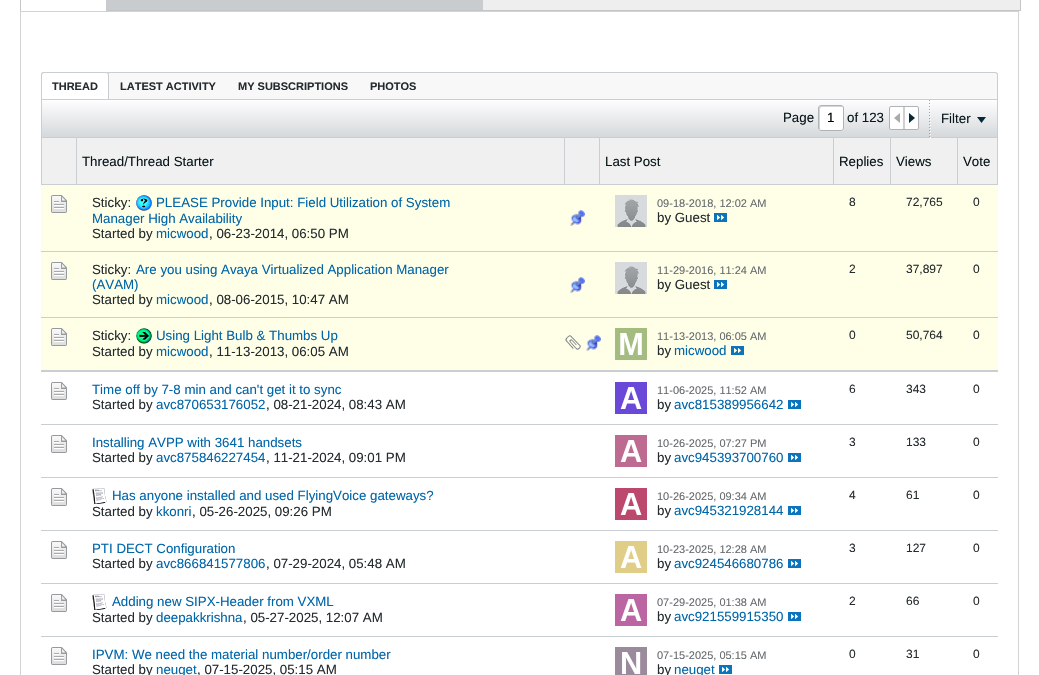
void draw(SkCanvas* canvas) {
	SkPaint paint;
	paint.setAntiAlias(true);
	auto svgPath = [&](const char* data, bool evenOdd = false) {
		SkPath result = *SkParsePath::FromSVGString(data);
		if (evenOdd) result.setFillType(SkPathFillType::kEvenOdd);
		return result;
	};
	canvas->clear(0xffffffff);
	paint.setColor(0xffeeeeee);
	canvas->drawRect(SkRect::MakeXYWH(483, 0, 537, 10), paint);
	paint.setColor(0xffc4c7c8);
	canvas->drawRect(SkRect::MakeXYWH(1020, 0, 1, 11), paint);
	canvas->drawRect(SkRect::MakeXYWH(106, 10, 915, 1), paint);
	canvas->drawRect(SkRect::MakeXYWH(20, 0, 1, 11), paint);
	paint.setColor(0xffc8ccce);
	canvas->drawRect(SkRect::MakeXYWH(106, 0, 377, 10), paint);
	paint.setStroke(true);
	paint.setStrokeWidth(1);
	paint.setColor(0xffd3d3d3);
	canvas->drawRect(SkRect::MakeXYWH(20.5, 11.5, 998, 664), paint);
	paint.setStroke(false);
	paint.setColor(0xfff8f8f8);
	canvas->drawPath(svgPath("M44 72H995C996.5 72 998 73.5 998 75V99H41V75C41 73.5 42.5 72 44 72Z"), paint);
	paint.setColor(0xffc9ced2);
	canvas->drawPath(svgPath("M44 72H995C997 72 998 73 998 75V99H41V75C41 73 42 72 44 72ZM44 73H995C996 73 997 74 997 75V99H42V75C42 74 43 73 44 73Z", true), paint);
	paint.setColor(0xfff8f8f8);
	canvas->drawPath(svgPath("M45 73H994C995.5 73 997 74.5 997 76V99H42V76C42 74.5 43.5 73 45 73Z"), paint);
	paint.setColor(0xffffffff);
	canvas->drawPath(svgPath("M44 72H106C107.5 72 109 73.5 109 75V99H41V75C41 73.5 42.5 72 44 72Z"), paint);
	paint.setColor(0xffc9ced2);
	canvas->drawPath(svgPath("M44 72H106C108 72 109 73 109 75V99H41V75C41 73 42 72 44 72ZM44 73H106C107 73 108 74 108 75V99H42V75C42 74 43 73 44 73Z", true), paint);
	SkFont f1(fontMgr->matchFamilyStyle("Liberation Sans", SkFontStyle::Bold()), 11);
	f1.setSubpixel(true);
	paint.setColor(0xff252c2f);
	canvas->drawString("THREAD", 52, 90, f1, paint);
	canvas->drawString("LATEST ACTIVITY", 120, 90, f1, paint);
	canvas->drawString("MY SUBSCRIPTIONS", 238, 90, f1, paint);
	canvas->drawString("PHOTOS", 370, 90, f1, paint);
	{
		const SkColor colors[] = {0xfffefeff, 0xffd5d8da};
		const float stops[] = {0, 1};
		const SkPoint ends[] = {{520, 100}, {520, 137}};
		paint.setShader(SkGradientShader::MakeLinear(ends, colors, stops, 2, SkTileMode::kClamp));
		paint.setAlpha(255);
	}
	canvas->drawRect(SkRect::MakeXYWH(42, 101, 955, 36), paint);
	paint.setStroke(true);
	paint.setShader(nullptr);
	paint.setColor(0xffc9ced2);
	canvas->drawRect(SkRect::MakeXYWH(41.5, 99.5, 956, 38), paint);
	SkFont f2(fontMgr->matchFamilyStyle("Liberation Sans", SkFontStyle::Normal()), 13.3);
	f2.setSubpixel(true);
	paint.setStroke(false);
	paint.setColor(0xff09161b);
	canvas->drawString("Page", 783, 122, f2, paint);
	paint.setColor(0xffffffff);
	canvas->drawRoundRect(SkRect::MakeXYWH(818, 105, 26, 26), 3, 3, paint);
	paint.setColor(0xffd5d5d5);
	canvas->drawPath(svgPath("M822 107H842H843C842.5 106.5 842 106 841 106H821C820 106 819 107 819 108V128C819 129 819.5 129.5 820 130V112.5C820 111 819.5 107 822 107Z"), paint);
	paint.setStroke(true);
	paint.setColor(0xffaeb3b6);
	canvas->drawRoundRect(SkRect::MakeXYWH(818.5, 105.5, 25, 25), 2.5, 2.5, paint);
	paint.setStroke(false);
	paint.setColor(0xff000000);
	canvas->drawString("1", 827, 122, f2, paint);
	paint.setColor(0xff09161b);
	canvas->drawString("of 123", 847, 122, f2, paint);
	paint.setColor(0xffffffff);
	canvas->drawRoundRect(SkRect::MakeXYWH(889.5, 106.5, 29, 23), 1.5, 1.5, paint);
	paint.setStroke(true);
	paint.setColor(0xffaeb3b6);
	canvas->drawRoundRect(SkRect::MakeXYWH(889.5, 106.5, 29, 23), 1.5, 1.5, paint);
	paint.setStroke(false);
	paint.setColor(0xffcdd1d4);
	canvas->drawRect(SkRect::MakeXYWH(903, 107, 2, 22), paint);
	canvas->drawImageRect(SkImages::DeferredFromEncodedData(SkData::MakeFromFileName("img1.png")), SkRect::MakeXYWH(894, 113, 6, 10), SkSamplingOptions());
	canvas->drawImageRect(SkImages::DeferredFromEncodedData(SkData::MakeFromFileName("img2.png")), SkRect::MakeXYWH(909, 113, 6, 10), SkSamplingOptions());
	canvas->drawImageRect(SkImages::DeferredFromEncodedData(SkData::MakeFromFileName("img3.png")), SkRect::MakeXYWH(929, 100, 1, 37), SkSamplingOptions());
	canvas->drawImageRect(SkImages::DeferredFromEncodedData(SkData::MakeFromFileName("img4.png")), SkRect::MakeXYWH(930, 104, 1, 34), SkSamplingOptions());
	paint.setColor(0xff09161b);
	canvas->drawString("Filter", 941, 123, f2, paint);
	canvas->drawImageRect(SkImages::DeferredFromEncodedData(SkData::MakeFromFileName("img5.png")), SkRect::MakeXYWH(977, 117, 9, 6), SkSamplingOptions());
	paint.setColor(0xfff0f0f0);
	canvas->drawRect(SkRect::MakeXYWH(42, 138, 955, 46), paint);
	paint.setColor(0xffc9ced2);
	canvas->drawRect(SkRect::MakeXYWH(76, 138, 1, 46), paint);
	canvas->drawRect(SkRect::MakeXYWH(41, 138, 1, 46), paint);
	canvas->drawRect(SkRect::MakeXYWH(564, 138, 1, 46), paint);
	paint.setColor(0xff09161b);
	canvas->drawString("Thread/Thread Starter", 82, 166, f2, paint);
	paint.setColor(0xffc9ced2);
	canvas->drawRect(SkRect::MakeXYWH(599, 138, 1, 46), paint);
	canvas->drawRect(SkRect::MakeXYWH(833, 138, 1, 46), paint);
	paint.setColor(0xff09161b);
	canvas->drawString("Last Post", 605, 166, f2, paint);
	paint.setColor(0xffc9ced2);
	canvas->drawRect(SkRect::MakeXYWH(890, 138, 1, 46), paint);
	paint.setColor(0xff09161b);
	canvas->drawString("Replies", 839, 166, f2, paint);
	paint.setColor(0xffc9ced2);
	canvas->drawRect(SkRect::MakeXYWH(957, 138, 1, 46), paint);
	paint.setColor(0xff09161b);
	canvas->drawString("Views", 896, 166, f2, paint);
	paint.setColor(0xffc9ced2);
	canvas->drawRect(SkRect::MakeXYWH(997, 138, 1, 46), paint);
	paint.setColor(0xff09161b);
	canvas->drawString("Vote", 963, 166, f2, paint);
	paint.setColor(0xffffffe7);
	canvas->drawRect(SkRect::MakeXYWH(41, 185, 957, 66), paint);
	paint.setColor(0xffc9ced2);
	canvas->drawRect(SkRect::MakeXYWH(41, 184, 36, 1), paint);
	canvas->drawImageRect(SkImages::DeferredFromEncodedData(SkData::MakeFromFileName("img6.png")), SkRect::MakeXYWH(51, 195, 16, 18), SkSamplingOptions());
	canvas->drawRect(SkRect::MakeXYWH(77, 184, 921, 1), paint);
	canvas->drawImageRect(SkImages::DeferredFromEncodedData(SkData::MakeFromFileName("img7.png")), SkRect::MakeXYWH(570, 210, 15, 16), SkSamplingOptions());
	paint.setColor(0xff252c2f);
	canvas->drawString("Sticky:", 92, 207, f2, paint);
	canvas->drawImageRect(SkImages::DeferredFromEncodedData(SkData::MakeFromFileName("img8.png")), SkRect::MakeXYWH(136, 195, 16, 16), SkSamplingOptions());
	paint.setColor(0xff0066aa);
	canvas->drawString("PLEASE Provide Input: Field Utilization of System", 156, 207, f2, paint);
	canvas->drawString("Manager High Availability", 92, 223, f2, paint);
	paint.setColor(0xff252c2f);
	canvas->drawString("Started by", 92, 238, f2, paint);
	paint.setColor(0xff0066aa);
	canvas->drawString("micwood", 156, 238, f2, paint);
	paint.setColor(0xff252c2f);
	canvas->drawString(", 06-23-2014, 06:50 PM", 209, 238, f2, paint);
	canvas->drawImageRect(SkImages::DeferredFromEncodedData(SkData::MakeFromFileName("img9.png")), SkRect::MakeXYWH(615, 195, 32, 32), SkSamplingOptions());
	SkFont f3(fontMgr->matchFamilyStyle("Liberation Sans", SkFontStyle::Normal()), 11);
	f3.setSubpixel(true);
	paint.setColor(0xff656a6d);
	canvas->drawString("09-18-2018, 12:02 AM", 657, 207, f3, paint);
	paint.setColor(0xff252c2f);
	canvas->drawString("by Guest", 657, 222, f2, paint);
	canvas->drawImageRect(SkImages::DeferredFromEncodedData(SkData::MakeFromFileName("img10.png")), SkRect::MakeXYWH(714, 213, 13, 9), SkSamplingOptions());
	SkFont f4(fontMgr->matchFamilyStyle("Liberation Sans", SkFontStyle::Normal()), 12);
	f4.setSubpixel(true);
	canvas->drawString("8", 849, 206, f4, paint);
	canvas->drawString("72,765", 906, 206, f4, paint);
	canvas->drawString("0", 973, 206, f4, paint);
	paint.setColor(0xffffffe7);
	canvas->drawRect(SkRect::MakeXYWH(41, 252, 957, 65), paint);
	paint.setColor(0xffc9ced2);
	canvas->drawRect(SkRect::MakeXYWH(41, 251, 36, 1), paint);
	canvas->drawImageRect(SkImages::DeferredFromEncodedData(SkData::MakeFromFileName("img6.png")), SkRect::MakeXYWH(51, 262, 16, 18), SkSamplingOptions());
	canvas->drawRect(SkRect::MakeXYWH(77, 251, 921, 1), paint);
	canvas->drawImageRect(SkImages::DeferredFromEncodedData(SkData::MakeFromFileName("img7.png")), SkRect::MakeXYWH(570, 277, 15, 16), SkSamplingOptions());
	paint.setColor(0xff252c2f);
	canvas->drawString("Sticky:", 92, 274, f2, paint);
	paint.setColor(0xff0066aa);
	canvas->drawString("Are you using Avaya Virtualized Application Manager", 136, 274, f2, paint);
	canvas->drawString("(AVAM)", 92, 289, f2, paint);
	paint.setColor(0xff252c2f);
	canvas->drawString("Started by", 92, 304, f2, paint);
	paint.setColor(0xff0066aa);
	canvas->drawString("micwood", 156, 304, f2, paint);
	paint.setColor(0xff252c2f);
	canvas->drawString(", 08-06-2015, 10:47 AM", 209, 304, f2, paint);
	canvas->drawImageRect(SkImages::DeferredFromEncodedData(SkData::MakeFromFileName("img9.png")), SkRect::MakeXYWH(615, 262, 32, 32), SkSamplingOptions());
	paint.setColor(0xff656a6d);
	canvas->drawString("11-29-2016, 11:24 AM", 657, 274, f3, paint);
	paint.setColor(0xff252c2f);
	canvas->drawString("by Guest", 657, 289, f2, paint);
	canvas->drawImageRect(SkImages::DeferredFromEncodedData(SkData::MakeFromFileName("img10.png")), SkRect::MakeXYWH(714, 280, 13, 9), SkSamplingOptions());
	canvas->drawString("2", 849, 273, f4, paint);
	canvas->drawString("37,897", 906, 273, f4, paint);
	canvas->drawString("0", 973, 273, f4, paint);
	paint.setColor(0xffffffe7);
	canvas->drawRect(SkRect::MakeXYWH(41, 318, 957, 52), paint);
	paint.setColor(0xffc9ced2);
	canvas->drawRect(SkRect::MakeXYWH(41, 317, 36, 1), paint);
	canvas->drawImageRect(SkImages::DeferredFromEncodedData(SkData::MakeFromFileName("img6.png")), SkRect::MakeXYWH(51, 328, 16, 18), SkSamplingOptions());
	canvas->drawRect(SkRect::MakeXYWH(77, 317, 921, 1), paint);
	canvas->drawImageRect(SkImages::DeferredFromEncodedData(SkData::MakeFromFileName("img11.png")), SkRect::MakeXYWH(565, 335, 16, 15), SkSamplingOptions());
	canvas->drawImageRect(SkImages::DeferredFromEncodedData(SkData::MakeFromFileName("img7.png")), SkRect::MakeXYWH(586, 335, 15, 16), SkSamplingOptions());
	paint.setColor(0xff252c2f);
	canvas->drawString("Sticky:", 92, 340, f2, paint);
	canvas->drawImageRect(SkImages::DeferredFromEncodedData(SkData::MakeFromFileName("img12.png")), SkRect::MakeXYWH(136, 328, 16, 16), SkSamplingOptions());
	paint.setColor(0xff0066aa);
	canvas->drawString("Using Light Bulb & Thumbs Up", 156, 340, f2, paint);
	paint.setColor(0xff252c2f);
	canvas->drawString("Started by", 92, 356, f2, paint);
	paint.setColor(0xff0066aa);
	canvas->drawString("micwood", 156, 356, f2, paint);
	paint.setColor(0xff252c2f);
	canvas->drawString(", 11-13-2013, 06:05 AM", 209, 356, f2, paint);
	canvas->drawImageRect(SkImages::DeferredFromEncodedData(SkData::MakeFromFileName("img13.png")), SkRect::MakeXYWH(615, 328, 32, 32), SkSamplingOptions());
	paint.setColor(0xff656a6d);
	canvas->drawString("11-13-2013, 06:05 AM", 657, 340, f3, paint);
	paint.setColor(0xff252c2f);
	canvas->drawString("by", 657, 355, f2, paint);
	paint.setColor(0xff0066aa);
	canvas->drawString("micwood", 674, 355, f2, paint);
	canvas->drawImageRect(SkImages::DeferredFromEncodedData(SkData::MakeFromFileName("img10.png")), SkRect::MakeXYWH(731, 346, 13, 9), SkSamplingOptions());
	paint.setColor(0xff252c2f);
	canvas->drawString("0", 849, 339, f4, paint);
	canvas->drawString("50,764", 906, 339, f4, paint);
	canvas->drawString("0", 973, 339, f4, paint);
	paint.setColor(0xffc9ced2);
	canvas->drawRect(SkRect::MakeXYWH(41, 370, 36, 2), paint);
	canvas->drawImageRect(SkImages::DeferredFromEncodedData(SkData::MakeFromFileName("img14.png")), SkRect::MakeXYWH(51, 382, 16, 18), SkSamplingOptions());
	canvas->drawRect(SkRect::MakeXYWH(77, 370, 921, 2), paint);
	paint.setColor(0xff0066aa);
	canvas->drawString("Time off by 7-8 min and can't get it to sync", 92, 394, f2, paint);
	paint.setColor(0xff252c2f);
	canvas->drawString("Started by", 92, 409, f2, paint);
	paint.setColor(0xff0066aa);
	canvas->drawString("avc870653176052", 156, 409, f2, paint);
	paint.setColor(0xff252c2f);
	canvas->drawString(", 08-21-2024, 08:43 AM", 266, 409, f2, paint);
	canvas->drawImageRect(SkImages::DeferredFromEncodedData(SkData::MakeFromFileName("img15.png")), SkRect::MakeXYWH(615, 382, 32, 32), SkSamplingOptions());
	paint.setColor(0xff656a6d);
	canvas->drawString("11-06-2025, 11:52 AM", 657, 394, f3, paint);
	paint.setColor(0xff252c2f);
	canvas->drawString("by", 657, 409, f2, paint);
	paint.setColor(0xff0066aa);
	canvas->drawString("avc815389956642", 674, 409, f2, paint);
	canvas->drawImageRect(SkImages::DeferredFromEncodedData(SkData::MakeFromFileName("img16.png")), SkRect::MakeXYWH(788, 400, 13, 9), SkSamplingOptions());
	paint.setColor(0xff252c2f);
	canvas->drawString("6", 849, 393, f4, paint);
	canvas->drawString("343", 906, 393, f4, paint);
	canvas->drawString("0", 973, 393, f4, paint);
	paint.setColor(0xffc9ced2);
	canvas->drawRect(SkRect::MakeXYWH(41, 424, 36, 1), paint);
	canvas->drawImageRect(SkImages::DeferredFromEncodedData(SkData::MakeFromFileName("img14.png")), SkRect::MakeXYWH(51, 435, 16, 18), SkSamplingOptions());
	canvas->drawRect(SkRect::MakeXYWH(77, 424, 921, 1), paint);
	paint.setColor(0xff0066aa);
	canvas->drawString("Installing AVPP with 3641 handsets", 92, 447, f2, paint);
	paint.setColor(0xff252c2f);
	canvas->drawString("Started by", 92, 462, f2, paint);
	paint.setColor(0xff0066aa);
	canvas->drawString("avc875846227454", 156, 462, f2, paint);
	paint.setColor(0xff252c2f);
	canvas->drawString(", 11-21-2024, 09:01 PM", 266, 462, f2, paint);
	canvas->drawImageRect(SkImages::DeferredFromEncodedData(SkData::MakeFromFileName("img17.png")), SkRect::MakeXYWH(615, 435, 32, 32), SkSamplingOptions());
	paint.setColor(0xff656a6d);
	canvas->drawString("10-26-2025, 07:27 PM", 657, 447, f3, paint);
	paint.setColor(0xff252c2f);
	canvas->drawString("by", 657, 462, f2, paint);
	paint.setColor(0xff0066aa);
	canvas->drawString("avc945393700760", 674, 462, f2, paint);
	canvas->drawImageRect(SkImages::DeferredFromEncodedData(SkData::MakeFromFileName("img16.png")), SkRect::MakeXYWH(788, 453, 13, 9), SkSamplingOptions());
	paint.setColor(0xff252c2f);
	canvas->drawString("3", 849, 446, f4, paint);
	canvas->drawString("133", 906, 446, f4, paint);
	canvas->drawString("0", 973, 446, f4, paint);
	paint.setColor(0xffc9ced2);
	canvas->drawRect(SkRect::MakeXYWH(41, 477, 36, 1), paint);
	canvas->drawImageRect(SkImages::DeferredFromEncodedData(SkData::MakeFromFileName("img14.png")), SkRect::MakeXYWH(51, 488, 16, 18), SkSamplingOptions());
	canvas->drawRect(SkRect::MakeXYWH(77, 477, 921, 1), paint);
	canvas->drawImageRect(SkImages::DeferredFromEncodedData(SkData::MakeFromFileName("img18.png")), SkRect::MakeXYWH(92, 488, 15, 16), SkSamplingOptions());
	paint.setColor(0xff0066aa);
	canvas->drawString("Has anyone installed and used FlyingVoice gateways?", 112, 500, f2, paint);
	paint.setColor(0xff252c2f);
	canvas->drawString("Started by", 92, 516, f2, paint);
	paint.setColor(0xff0066aa);
	canvas->drawString("kkonri", 156, 516, f2, paint);
	paint.setColor(0xff252c2f);
	canvas->drawString(", 05-26-2025, 09:26 PM", 192, 516, f2, paint);
	canvas->drawImageRect(SkImages::DeferredFromEncodedData(SkData::MakeFromFileName("img19.png")), SkRect::MakeXYWH(615, 488, 32, 32), SkSamplingOptions());
	paint.setColor(0xff656a6d);
	canvas->drawString("10-26-2025, 09:34 AM", 657, 500, f3, paint);
	paint.setColor(0xff252c2f);
	canvas->drawString("by", 657, 515, f2, paint);
	paint.setColor(0xff0066aa);
	canvas->drawString("avc945321928144", 674, 515, f2, paint);
	canvas->drawImageRect(SkImages::DeferredFromEncodedData(SkData::MakeFromFileName("img16.png")), SkRect::MakeXYWH(788, 506, 13, 9), SkSamplingOptions());
	paint.setColor(0xff252c2f);
	canvas->drawString("4", 849, 499, f4, paint);
	canvas->drawString("61", 906, 499, f4, paint);
	canvas->drawString("0", 973, 499, f4, paint);
	paint.setColor(0xffc9ced2);
	canvas->drawRect(SkRect::MakeXYWH(41, 530, 36, 1), paint);
	canvas->drawImageRect(SkImages::DeferredFromEncodedData(SkData::MakeFromFileName("img14.png")), SkRect::MakeXYWH(51, 541, 16, 18), SkSamplingOptions());
	canvas->drawRect(SkRect::MakeXYWH(77, 530, 921, 1), paint);
	paint.setColor(0xff0066aa);
	canvas->drawString("PTI DECT Configuration", 92, 553, f2, paint);
	paint.setColor(0xff252c2f);
	canvas->drawString("Started by", 92, 568, f2, paint);
	paint.setColor(0xff0066aa);
	canvas->drawString("avc866841577806", 156, 568, f2, paint);
	paint.setColor(0xff252c2f);
	canvas->drawString(", 07-29-2024, 05:48 AM", 266, 568, f2, paint);
	canvas->drawImageRect(SkImages::DeferredFromEncodedData(SkData::MakeFromFileName("img20.png")), SkRect::MakeXYWH(615, 541, 32, 32), SkSamplingOptions());
	paint.setColor(0xff656a6d);
	canvas->drawString("10-23-2025, 12:28 AM", 657, 553, f3, paint);
	paint.setColor(0xff252c2f);
	canvas->drawString("by", 657, 568, f2, paint);
	paint.setColor(0xff0066aa);
	canvas->drawString("avc924546680786", 674, 568, f2, paint);
	canvas->drawImageRect(SkImages::DeferredFromEncodedData(SkData::MakeFromFileName("img16.png")), SkRect::MakeXYWH(788, 559, 13, 9), SkSamplingOptions());
	paint.setColor(0xff252c2f);
	canvas->drawString("3", 849, 552, f4, paint);
	canvas->drawString("127", 906, 552, f4, paint);
	canvas->drawString("0", 973, 552, f4, paint);
	paint.setColor(0xffc9ced2);
	canvas->drawRect(SkRect::MakeXYWH(41, 583, 36, 1), paint);
	canvas->drawImageRect(SkImages::DeferredFromEncodedData(SkData::MakeFromFileName("img14.png")), SkRect::MakeXYWH(51, 594, 16, 18), SkSamplingOptions());
	canvas->drawRect(SkRect::MakeXYWH(77, 583, 921, 1), paint);
	canvas->drawImageRect(SkImages::DeferredFromEncodedData(SkData::MakeFromFileName("img18.png")), SkRect::MakeXYWH(92, 594, 15, 16), SkSamplingOptions());
	paint.setColor(0xff0066aa);
	canvas->drawString("Adding new SIPX-Header from VXML", 112, 606, f2, paint);
	paint.setColor(0xff252c2f);
	canvas->drawString("Started by", 92, 622, f2, paint);
	paint.setColor(0xff0066aa);
	canvas->drawString("deepakkrishna", 156, 622, f2, paint);
	paint.setColor(0xff252c2f);
	canvas->drawString(", 05-27-2025, 12:07 AM", 243, 622, f2, paint);
	canvas->drawImageRect(SkImages::DeferredFromEncodedData(SkData::MakeFromFileName("img21.png")), SkRect::MakeXYWH(615, 594, 32, 32), SkSamplingOptions());
	paint.setColor(0xff656a6d);
	canvas->drawString("07-29-2025, 01:38 AM", 657, 606, f3, paint);
	paint.setColor(0xff252c2f);
	canvas->drawString("by", 657, 621, f2, paint);
	paint.setColor(0xff0066aa);
	canvas->drawString("avc921559915350", 674, 621, f2, paint);
	canvas->drawImageRect(SkImages::DeferredFromEncodedData(SkData::MakeFromFileName("img16.png")), SkRect::MakeXYWH(788, 612, 13, 9), SkSamplingOptions());
	paint.setColor(0xff252c2f);
	canvas->drawString("2", 849, 605, f4, paint);
	canvas->drawString("66", 906, 605, f4, paint);
	canvas->drawString("0", 973, 605, f4, paint);
	paint.setColor(0xffc9ced2);
	canvas->drawRect(SkRect::MakeXYWH(41, 636, 36, 1), paint);
	canvas->drawImageRect(SkImages::DeferredFromEncodedData(SkData::MakeFromFileName("img14.png")), SkRect::MakeXYWH(51, 647, 16, 18), SkSamplingOptions());
	canvas->drawRect(SkRect::MakeXYWH(77, 636, 921, 1), paint);
	paint.setColor(0xff0066aa);
	canvas->drawString("IPVM: We need the material number/order number", 92, 659, f2, paint);
	paint.setColor(0xff252c2f);
	canvas->drawString("Started by", 92, 674, f2, paint);
	paint.setColor(0xff0066aa);
	canvas->drawString("neuget", 156, 674, f2, paint);
	paint.setColor(0xff252c2f);
	canvas->drawString(", 07-15-2025, 05:15 AM", 197, 674, f2, paint);
	canvas->drawImageRect(SkImages::DeferredFromEncodedData(SkData::MakeFromFileName("img22.png")), SkRect::MakeXYWH(615, 647, 32, 28), SkSamplingOptions());
	paint.setColor(0xff656a6d);
	canvas->drawString("07-15-2025, 05:15 AM", 657, 659, f3, paint);
	paint.setColor(0xff252c2f);
	canvas->drawString("by", 657, 674, f2, paint);
	paint.setColor(0xff0066aa);
	canvas->drawString("neuget", 674, 674, f2, paint);
	canvas->drawImageRect(SkImages::DeferredFromEncodedData(SkData::MakeFromFileName("img16.png")), SkRect::MakeXYWH(719, 665, 13, 9), SkSamplingOptions());
	paint.setColor(0xff252c2f);
	canvas->drawString("0", 849, 658, f4, paint);
	canvas->drawString("31", 906, 658, f4, paint);
	canvas->drawString("0", 973, 658, f4, paint);
}
